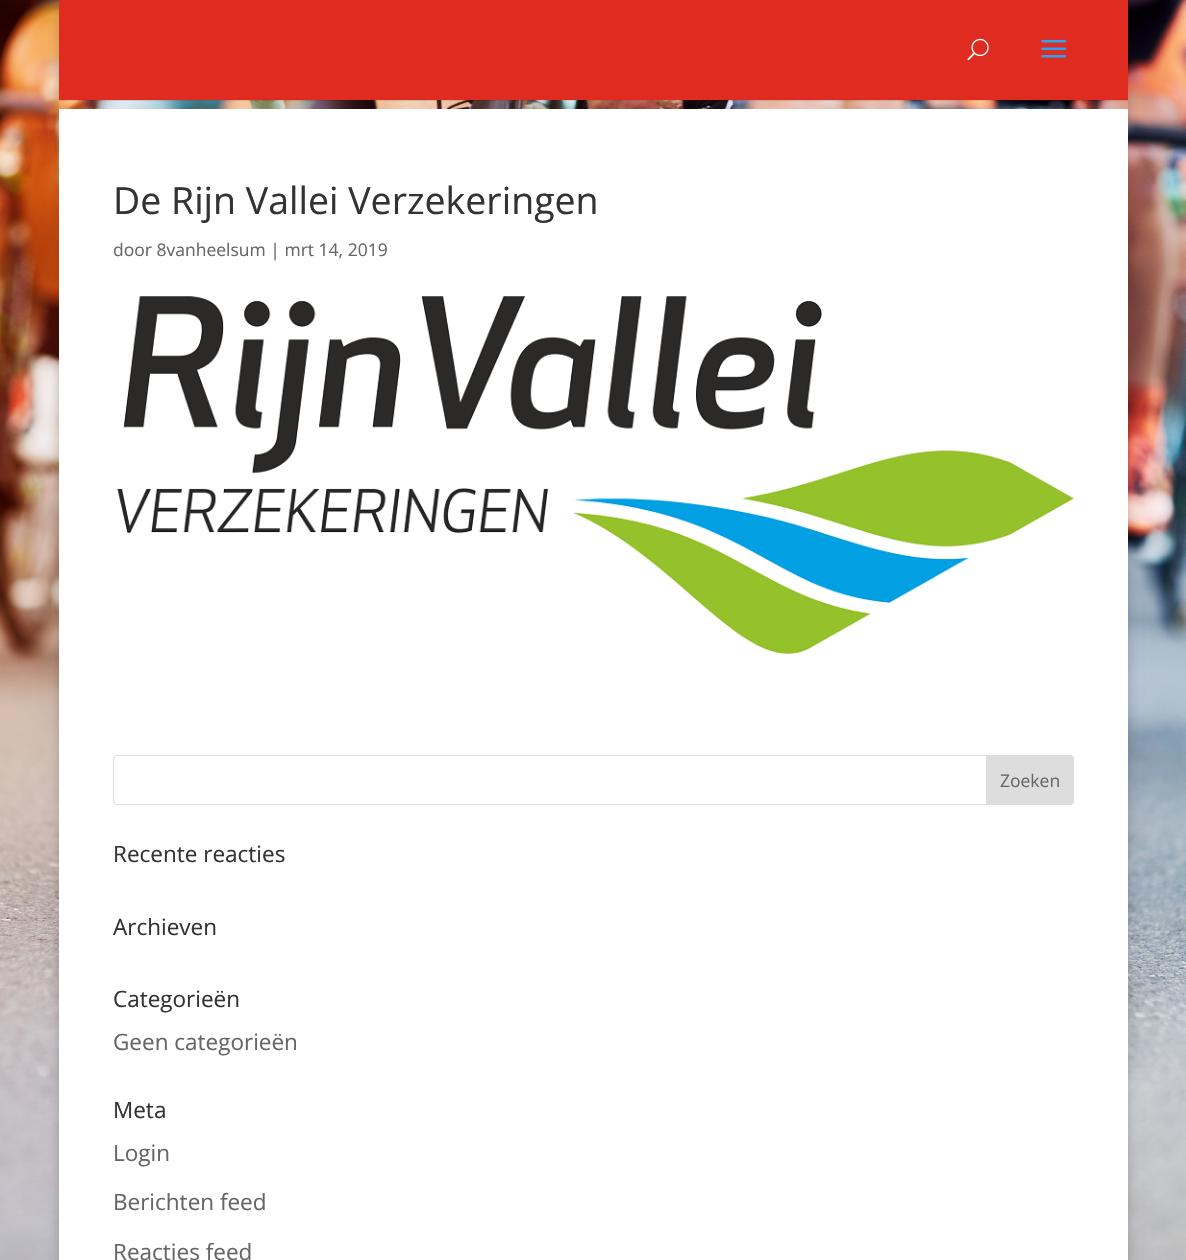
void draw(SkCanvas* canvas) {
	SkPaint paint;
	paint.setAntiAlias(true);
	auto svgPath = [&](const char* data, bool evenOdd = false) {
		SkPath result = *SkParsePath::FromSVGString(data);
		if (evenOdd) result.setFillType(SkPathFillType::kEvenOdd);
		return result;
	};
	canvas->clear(0xffffffff);
	canvas->drawImageRect(SkImages::DeferredFromEncodedData(SkData::MakeFromFileName("img1.png")), SkRect::MakeXYWH(0, 0, 1186, 1260), SkSamplingOptions());
	canvas->save();
	canvas->clipPath(svgPath("M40 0H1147V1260H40ZM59 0H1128V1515H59Z", true), true);
	paint.setColor(0x33000000);
	paint.setMaskFilter(SkMaskFilter::MakeBlur(kNormal_SkBlurStyle, 6));
	canvas->drawRect(SkRect::MakeXYWH(59, 0, 1069, 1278), paint);
	paint.setMaskFilter(nullptr);
	canvas->restore();
	paint.setColor(0x1a000000);
	canvas->drawPath(svgPath("M59 100V101H1128V1V100Z"), paint);
	paint.setColor(0xffe02b20);
	canvas->drawRect(SkRect::MakeXYWH(59, 0, 1069, 100), paint);
	canvas->drawImageRect(SkImages::DeferredFromEncodedData(SkData::MakeFromFileName("img2.png")), SkRect::MakeXYWH(967, 38, 22, 23), SkSamplingOptions());
	canvas->drawImageRect(SkImages::DeferredFromEncodedData(SkData::MakeFromFileName("img3.png")), SkRect::MakeXYWH(1041, 40, 26, 18), SkSamplingOptions());
	paint.setColor(0xffffffff);
	canvas->drawRect(SkRect::MakeXYWH(59, 109, 1069, 1151), paint);
	SkFont f1(fontMgr->matchFamilyStyle("Open Sans", SkFontStyle::Normal()), 37.5);
	f1.setSubpixel(true);
	paint.setColor(0xff333333);
	canvas->drawString("De Rijn Vallei Verzekeringen", 113, 214, f1, paint);
	SkFont f2(fontMgr->matchFamilyStyle("Open Sans", SkFontStyle::Normal()), 17.5);
	f2.setSubpixel(true);
	paint.setColor(0xff666666);
	canvas->drawString("door 8vanheelsum | mrt 14, 2019", 113, 256, f2, paint);
	canvas->drawImageRect(SkImages::DeferredFromEncodedData(SkData::MakeFromFileName("img4.png")), SkRect::MakeXYWH(117, 296, 957, 358), SkSamplingOptions());
	paint.setStroke(true);
	paint.setStrokeWidth(1);
	paint.setColor(0xffdddddd);
	canvas->drawRoundRect(SkRect::MakeXYWH(113.5, 755.5, 960, 49), 3.5, 3.5, paint);
	paint.setStroke(false);
	canvas->drawPath(svgPath("M986.5 755.5H1070C1072 755.5 1073.5 757 1073.5 759V801C1073.5 803 1072 804.5 1070 804.5H986.5Z"), paint);
	paint.setStroke(true);
	canvas->drawPath(svgPath("M986.5 755.5H1070C1072 755.5 1073.5 757 1073.5 759V801C1073.5 803 1072 804.5 1070 804.5H986.5Z"), paint);
	paint.setStroke(false);
	paint.setColor(0xff666666);
	canvas->drawString("Zoeken", 1000, 787, f2, paint);
	SkFont f3(fontMgr->matchFamilyStyle("Open Sans", SkFontStyle::Normal()), 22.5);
	f3.setSubpixel(true);
	paint.setColor(0xff333333);
	canvas->drawString("Recente reacties", 113, 862, f3, paint);
	canvas->drawString("Archieven", 113, 935, f3, paint);
	canvas->drawString("Categorieën", 113, 1007, f3, paint);
	paint.setColor(0xff666666);
	canvas->drawString("Geen categorieën", 113, 1050, f3, paint);
	paint.setColor(0xff333333);
	canvas->drawString("Meta", 113, 1118, f3, paint);
	paint.setColor(0xff666666);
	canvas->drawString("Login", 113, 1161, f3, paint);
	canvas->drawString("Berichten feed", 113, 1210, f3, paint);
	canvas->drawString("Reacties feed", 113, 1260, f3, paint);
}
